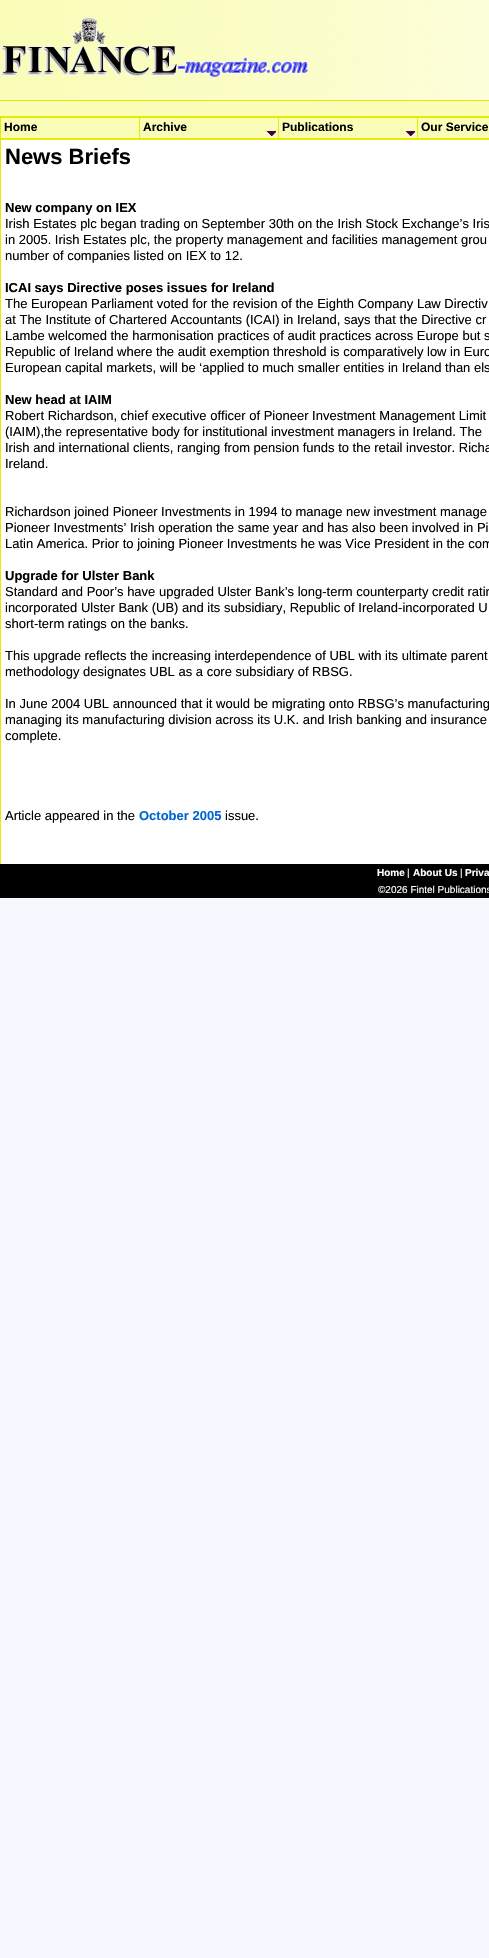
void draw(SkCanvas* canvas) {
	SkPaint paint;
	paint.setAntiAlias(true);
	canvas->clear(0xfff7f7ff);
	paint.setColor(0xffe4ec00);
	canvas->drawRect(SkRect::MakeXYWH(0, 117, 489, 23), paint);
	paint.setColor(0xfffafdb8);
	canvas->drawRect(SkRect::MakeXYWH(1, 118, 138, 20), paint);
	SkFont f1(fontMgr->matchFamilyStyle("Liberation Sans", SkFontStyle::Bold()), 12);
	f1.setSubpixel(true);
	paint.setColor(0xff000000);
	canvas->drawString("Home", 4, 131, f1, paint);
	paint.setColor(0xfffafdb8);
	canvas->drawRect(SkRect::MakeXYWH(140, 118, 138, 20), paint);
	paint.setColor(0xff000000);
	canvas->drawString("Archive", 143, 131, f1, paint);
	canvas->drawImageRect(SkImages::DeferredFromEncodedData(SkData::MakeFromFileName("img1.png")), SkRect::MakeXYWH(266, 131, 10, 5), SkSamplingOptions());
	paint.setColor(0xfffafdb8);
	canvas->drawRect(SkRect::MakeXYWH(279, 118, 138, 20), paint);
	paint.setColor(0xff000000);
	canvas->drawString("Publications", 282, 131, f1, paint);
	canvas->drawImageRect(SkImages::DeferredFromEncodedData(SkData::MakeFromFileName("img1.png")), SkRect::MakeXYWH(405, 131, 10, 5), SkSamplingOptions());
	paint.setColor(0xfffafdb8);
	canvas->drawRect(SkRect::MakeXYWH(418, 118, 71, 20), paint);
	paint.setColor(0xff000000);
	canvas->drawString("Our Service", 421, 131, f1, paint);
	canvas->drawImageRect(SkImages::DeferredFromEncodedData(SkData::MakeFromFileName("img2.png")), SkRect::MakeXYWH(0, 0, 489, 100), SkSamplingOptions());
	canvas->drawImageRect(SkImages::DeferredFromEncodedData(SkData::MakeFromFileName("img3.png")), SkRect::MakeXYWH(1, 18, 308, 59), SkSamplingOptions());
	paint.setColor(0xfffafdb8);
	canvas->drawRect(SkRect::MakeXYWH(0, 101, 489, 15), paint);
	paint.setColor(0xffe4ec00);
	canvas->drawRect(SkRect::MakeXYWH(0, 100, 489, 1), paint);
	canvas->drawRect(SkRect::MakeXYWH(0, 116, 489, 1), paint);
	paint.setColor(0xffffffff);
	canvas->drawRect(SkRect::MakeXYWH(1, 140, 488, 724), paint);
	paint.setColor(0xffe4ec00);
	canvas->drawRect(SkRect::MakeXYWH(0, 139, 1, 725), paint);
	SkFont f2(fontMgr->matchFamilyStyle("Liberation Sans", SkFontStyle::Bold()), 22);
	f2.setSubpixel(true);
	paint.setColor(0xff000000);
	canvas->drawString("News Briefs", 5, 164, f2, paint);
	SkFont f3(fontMgr->matchFamilyStyle("Liberation Sans", SkFontStyle::Bold()), 13);
	f3.setSubpixel(true);
	canvas->drawString("New company on IEX", 5, 212, f3, paint);
	SkFont f4(fontMgr->matchFamilyStyle("Liberation Sans", SkFontStyle::Normal()), 13);
	f4.setSubpixel(true);
	canvas->drawString("Irish Estates plc began trading on September 30th on the Irish Stock Exchange’s Iris", 5, 228, f4, paint);
	canvas->drawString("in 2005. Irish Estates plc, the property management and facilities management grou", 5, 244, f4, paint);
	canvas->drawString("number of companies listed on IEX to 12.", 5, 260, f4, paint);
	canvas->drawString("ICAI says Directive poses issues for Ireland", 5, 292, f3, paint);
	canvas->drawString("The European Parliament voted for the revision of the Eighth Company Law Directiv", 5, 308, f4, paint);
	canvas->drawString("at The Institute of Chartered Accountants (ICAI) in Ireland, says that the Directive cr", 5, 324, f4, paint);
	canvas->drawString("Lambe welcomed the harmonisation practices of audit practices across Europe but s", 5, 340, f4, paint);
	canvas->drawString("Republic of Ireland where the audit exemption threshold is comparatively low in Euro", 5, 356, f4, paint);
	canvas->drawString("European capital markets, will be ‘applied to much smaller entities in Ireland than els", 5, 372, f4, paint);
	canvas->drawString("New head at IAIM", 5, 404, f3, paint);
	canvas->drawString("Robert Richardson, chief executive officer of Pioneer Investment Management Limit", 5, 420, f4, paint);
	canvas->drawString("(IAIM),the representative body for institutional investment managers in Ireland. The", 5, 436, f4, paint);
	canvas->drawString("Irish and international clients, ranging from pension funds to the retail investor. Richa", 5, 452, f4, paint);
	canvas->drawString("Ireland.", 5, 468, f4, paint);
	canvas->drawString("Richardson joined Pioneer Investments in 1994 to manage new investment manage", 5, 516, f4, paint);
	canvas->drawString("Pioneer Investments’ Irish operation the same year and has also been involved in Pi", 5, 532, f4, paint);
	canvas->drawString("Latin America. Prior to joining Pioneer Investments he was Vice President in the com", 5, 548, f4, paint);
	canvas->drawString("Upgrade for Ulster Bank", 5, 580, f3, paint);
	canvas->drawString("Standard and Poor’s have upgraded Ulster Bank’s long-term counterparty credit ratin", 5, 596, f4, paint);
	canvas->drawString("incorporated Ulster Bank (UB) and its subsidiary, Republic of Ireland-incorporated U", 5, 612, f4, paint);
	canvas->drawString("short-term ratings on the banks.", 5, 628, f4, paint);
	canvas->drawString("This upgrade reflects the increasing interdependence of UBL with its ultimate parent", 5, 660, f4, paint);
	canvas->drawString("methodology designates UBL as a core subsidiary of RBSG.", 5, 676, f4, paint);
	canvas->drawString("In June 2004 UBL announced that it would be migrating onto RBSG’s manufacturing", 5, 708, f4, paint);
	canvas->drawString("managing its manufacturing division across its U.K. and Irish banking and insurance", 5, 724, f4, paint);
	canvas->drawString("complete.", 5, 740, f4, paint);
	canvas->drawString("Article appeared in the", 5, 820, f4, paint);
	paint.setColor(0xff0165ce);
	canvas->drawString("October 2005", 139, 820, f3, paint);
	paint.setColor(0xff000000);
	canvas->drawString("issue.", 225, 820, f4, paint);
	canvas->drawRect(SkRect::MakeXYWH(0, 864, 489, 34), paint);
	SkFont f5(fontMgr->matchFamilyStyle("Liberation Sans", SkFontStyle::Bold()), 10);
	f5.setSubpixel(true);
	paint.setColor(0xffffffff);
	canvas->drawString("Home", 377, 876, f5, paint);
	SkFont f6(fontMgr->matchFamilyStyle("Liberation Sans", SkFontStyle::Normal()), 10);
	f6.setSubpixel(true);
	canvas->drawString("|", 407, 876, f6, paint);
	canvas->drawString("About Us", 413, 876, f5, paint);
	canvas->drawString("|", 460, 876, f6, paint);
	canvas->drawString("Priva", 465, 876, f5, paint);
	canvas->drawString("©2026 Fintel Publications", 378, 893, f6, paint);
}
